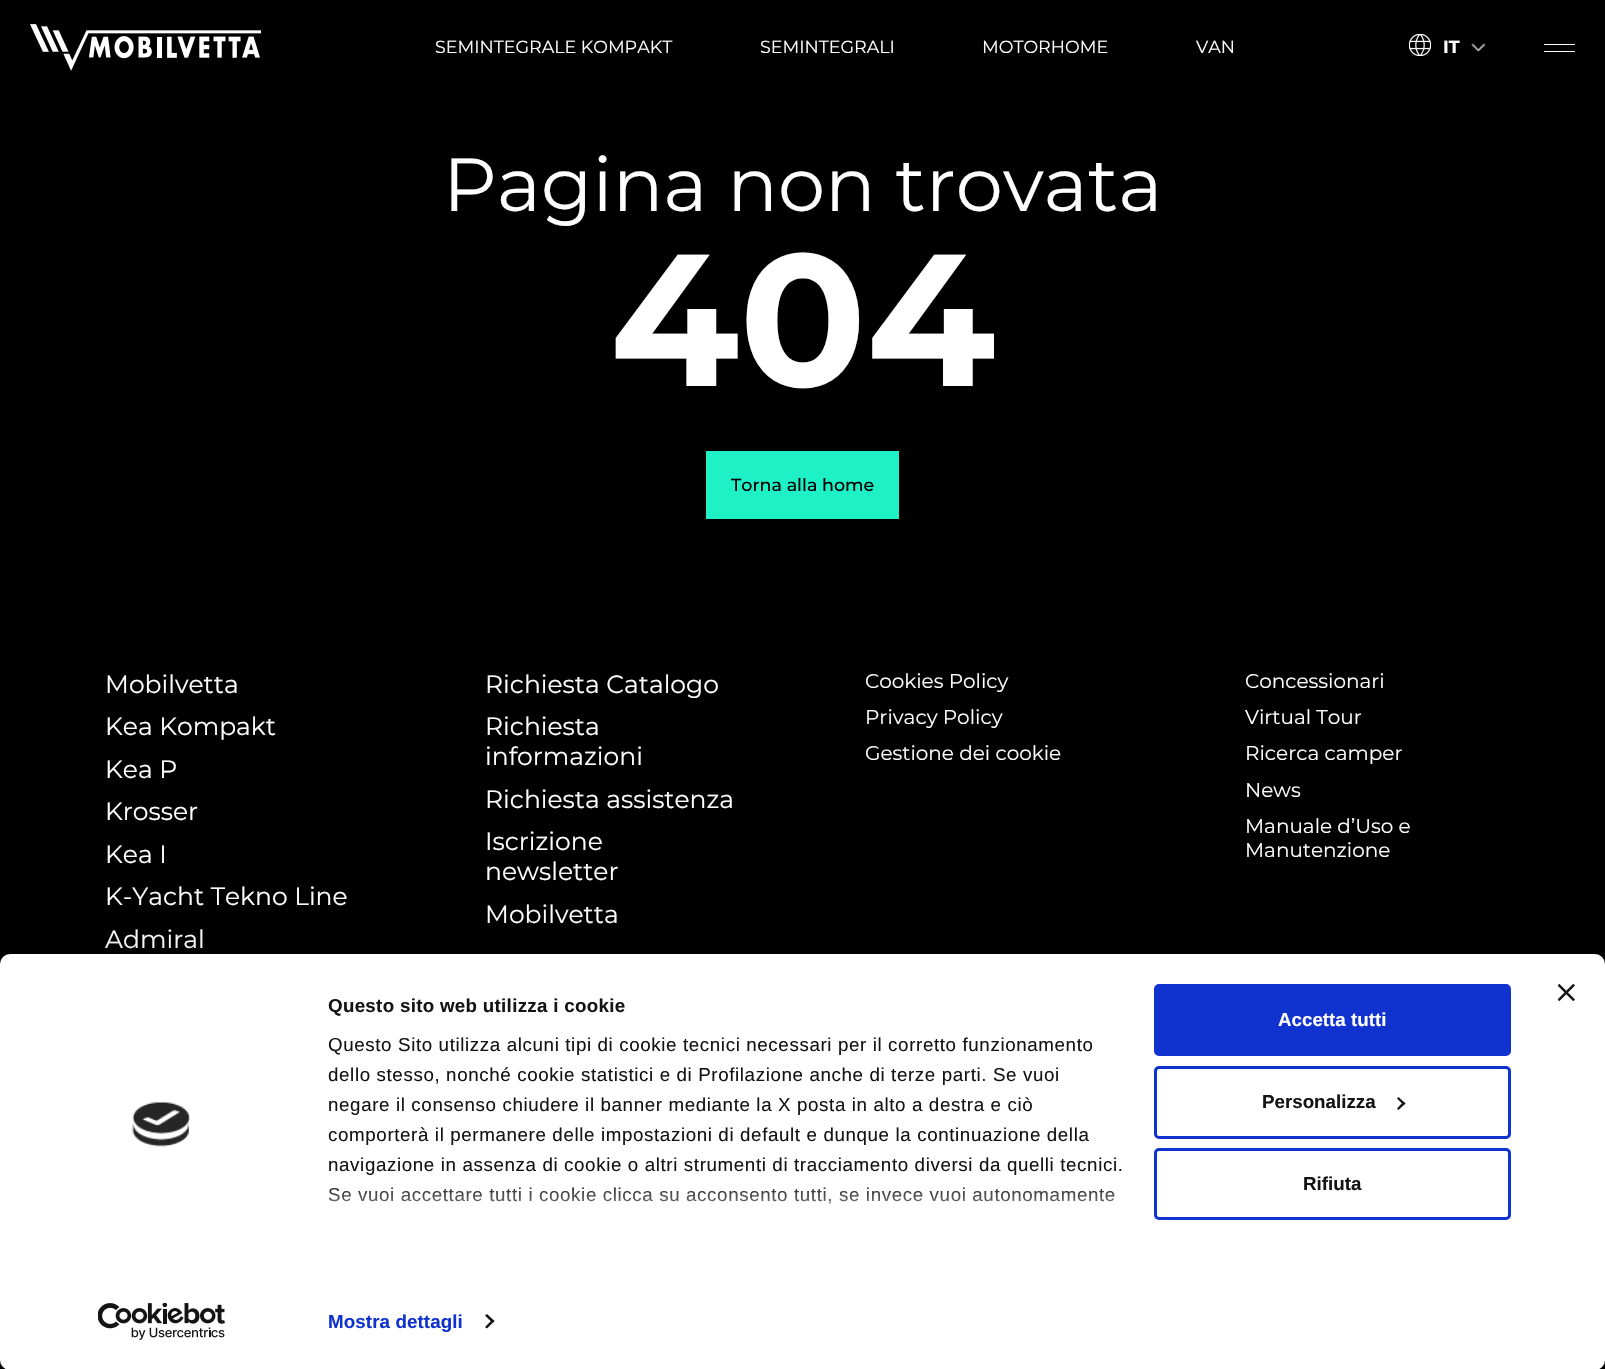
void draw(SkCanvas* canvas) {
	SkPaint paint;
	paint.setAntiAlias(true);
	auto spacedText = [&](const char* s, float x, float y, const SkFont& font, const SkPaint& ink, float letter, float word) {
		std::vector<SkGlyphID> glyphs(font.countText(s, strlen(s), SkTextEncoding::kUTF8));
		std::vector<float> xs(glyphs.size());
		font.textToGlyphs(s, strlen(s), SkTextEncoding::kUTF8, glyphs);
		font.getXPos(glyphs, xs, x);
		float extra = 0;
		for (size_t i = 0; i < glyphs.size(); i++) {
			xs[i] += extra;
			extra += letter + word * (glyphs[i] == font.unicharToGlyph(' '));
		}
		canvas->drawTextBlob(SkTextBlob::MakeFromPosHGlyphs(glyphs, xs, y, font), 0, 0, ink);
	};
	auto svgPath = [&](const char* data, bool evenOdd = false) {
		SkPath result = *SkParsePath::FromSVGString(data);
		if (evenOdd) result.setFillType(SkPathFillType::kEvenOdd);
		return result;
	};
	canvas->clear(0xff000000);
	canvas->drawImageRect(SkImages::DeferredFromEncodedData(SkData::MakeFromFileName("img1.png")), SkRect::MakeXYWH(30, 24, 231, 47), SkSamplingOptions());
	SkFont f1(fontMgr->matchFamilyStyle("Montserrat", SkFontStyle::Normal()), 17.5);
	f1.setSubpixel(true);
	paint.setColor(0xffffffff);
	canvas->drawString("SEMINTEGRALE KOMPAKT", 435, 53, f1, paint);
	canvas->drawString("SEMINTEGRALI", 760, 53, f1, paint);
	canvas->drawString("MOTORHOME", 982, 53, f1, paint);
	canvas->drawString("VAN", 1196, 53, f1, paint);
	canvas->drawImageRect(SkImages::DeferredFromEncodedData(SkData::MakeFromFileName("img2.png")), SkRect::MakeXYWH(1409, 34, 22, 22), SkSamplingOptions());
	SkFont f2(fontMgr->matchFamilyStyle("Montserrat", SkFontStyle::Bold()), 17.5);
	f2.setSubpixel(true);
	canvas->drawString("IT", 1443, 53, f2, paint);
	canvas->drawImageRect(SkImages::DeferredFromEncodedData(SkData::MakeFromFileName("img3.png")), SkRect::MakeXYWH(1471, 43, 15, 9), SkSamplingOptions());
	canvas->drawRect(SkRect::MakeXYWH(1544, 44, 31, 1), paint);
	canvas->drawRect(SkRect::MakeXYWH(1544, 51, 31, 1), paint);
	SkFont f3(fontMgr->matchFamilyStyle("Montserrat", SkFontStyle::Normal()), 75);
	f3.setSubpixel(true);
	canvas->drawString("Pagina non trovata", 443, 211, f3, paint);
	SkFont f4(fontMgr->matchFamilyStyle("Montserrat", SkFontStyle::Bold()), 187.5);
	f4.setSubpixel(true);
	canvas->drawString("404", 610, 386, f4, paint);
	paint.setColor(0xff1ef1c6);
	canvas->drawRect(SkRect::MakeXYWH(706, 451, 193, 68), paint);
	SkFont f5(fontMgr->matchFamilyStyle("Montserrat", SkFontStyle(500, SkFontStyle::kNormal_Width, SkFontStyle::kUpright_Slant)), 17.5);
	f5.setSubpixel(true);
	paint.setColor(0xff000000);
	canvas->drawString("Torna alla home", 731, 491, f5, paint);
	SkFont f6(fontMgr->matchFamilyStyle("Montserrat", SkFontStyle::Normal()), 25);
	f6.setSubpixel(true);
	paint.setColor(0xffffffff);
	canvas->drawString("Mobilvetta", 105, 693, f6, paint);
	canvas->drawString("Kea Kompakt", 105, 735, f6, paint);
	canvas->drawString("Kea P", 105, 778, f6, paint);
	canvas->drawString("Krosser", 105, 820, f6, paint);
	canvas->drawString("Kea I", 105, 863, f6, paint);
	canvas->drawString("K-Yacht Tekno Line", 105, 905, f6, paint);
	canvas->drawString("Admiral", 105, 948, f6, paint);
	canvas->drawString("Richiesta Catalogo", 485, 693, f6, paint);
	canvas->drawString("Richiesta", 485, 735, f6, paint);
	canvas->drawString("informazioni", 485, 765, f6, paint);
	canvas->drawString("Richiesta assistenza", 485, 808, f6, paint);
	canvas->drawString("Iscrizione", 485, 850, f6, paint);
	canvas->drawString("newsletter", 485, 880, f6, paint);
	canvas->drawString("Mobilvetta", 485, 923, f6, paint);
	SkFont f7(fontMgr->matchFamilyStyle("Montserrat", SkFontStyle::Normal()), 20);
	f7.setSubpixel(true);
	canvas->drawString("Cookies Policy", 865, 688, f7, paint);
	canvas->drawString("Privacy Policy", 865, 724, f7, paint);
	canvas->drawString("Gestione dei cookie", 865, 760, f7, paint);
	canvas->drawString("Concessionari", 1245, 688, f7, paint);
	canvas->drawString("Virtual Tour", 1245, 724, f7, paint);
	canvas->drawString("Ricerca camper", 1245, 760, f7, paint);
	canvas->drawString("News", 1245, 797, f7, paint);
	canvas->drawString("Manuale d’Uso e", 1245, 833, f7, paint);
	canvas->drawString("Manutenzione", 1245, 857, f7, paint);
	paint.setColor(0x4d000000);
	paint.setMaskFilter(SkMaskFilter::MakeBlur(kNormal_SkBlurStyle, 44));
	canvas->drawRoundRect(SkRect::MakeXYWH(0, 991, 1605, 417), 10, 10, paint);
	paint.setMaskFilter(nullptr);
	paint.setColor(0xffffffff);
	canvas->drawRoundRect(SkRect::MakeXYWH(0, 954, 1605, 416), 10, 10, paint);
	canvas->drawImageRect(SkImages::DeferredFromEncodedData(SkData::MakeFromFileName("img4.png")), SkRect::MakeXYWH(1558, 984, 17, 17), SkSamplingOptions());
	canvas->drawImageRect(SkImages::DeferredFromEncodedData(SkData::MakeFromFileName("img5.png")), SkRect::MakeXYWH(132, 1102, 58, 45), SkSamplingOptions());
	canvas->drawImageRect(SkImages::DeferredFromEncodedData(SkData::MakeFromFileName("img6.png")), SkRect::MakeXYWH(98, 1303, 127, 37), SkSamplingOptions());
	SkFont f8(fontMgr->matchFamilyStyle("Liberation Sans", SkFontStyle::Bold()), 18.75);
	f8.setSubpixel(true);
	paint.setColor(0xff141414);
	spacedText("Questo sito web utilizza i cookie", 328, 1012, f8, paint, 0.3, 0);
	SkFont f9(fontMgr->matchFamilyStyle("Liberation Sans", SkFontStyle::Normal()), 18.75);
	f9.setSubpixel(true);
	spacedText("Questo Sito utilizza alcuni tipi di cookie tecnici necessari per il corretto funzionamento", 328, 1051, f9, paint, 0.62, 0);
	spacedText("dello stesso, nonché cookie statistici e di Profilazione anche di terze parti. Se vuoi", 328, 1081, f9, paint, 0.62, 0);
	spacedText("negare il consenso chiudere il banner mediante la X posta in alto a destra e ciò", 328, 1111, f9, paint, 0.62, 0);
	spacedText("comporterà il permanere delle impostazioni di default e dunque la continuazione della", 328, 1141, f9, paint, 0.62, 0);
	spacedText("navigazione in assenza di cookie o altri strumenti di tracciamento diversi da quelli tecnici.", 328, 1171, f9, paint, 0.62, 0);
	spacedText("Se vuoi accettare tutti i cookie clicca su acconsento tutti, se invece vuoi autonomamente", 328, 1201, f9, paint, 0.62, 0);
	{
		const SkColor colors[] = {0xffffffff, 0xccffffff, 0x00ffffff};
		const float stops[] = {0, 0.5, 1};
		const SkPoint ends[] = {{725, 1275}, {725, 1181}};
		paint.setShader(SkGradientShader::MakeLinear(ends, colors, stops, 3, SkTileMode::kClamp));
		paint.setAlpha(255);
	}
	canvas->drawRect(SkRect::MakeXYWH(328, 1187, 787, 17), paint);
	paint.setShader(nullptr);
	paint.setColor(0xff1032cf);
	spacedText("Mostra dettagli", 328, 1328, f8, paint, 0.1, 0);
	paint.setColor(0xff141414);
	canvas->drawPath(svgPath("M487 1314L494.5 1321L492.5 1323L485 1315.5Z"), paint);
	canvas->drawPath(svgPath("M492.5 1319.5L494.5 1321L487 1328.5L485 1327Z"), paint);
	paint.setColor(0xff1032cf);
	canvas->drawRoundRect(SkRect::MakeXYWH(1155.5, 985.5, 354, 69), 3.5, 3.5, paint);
	paint.setStroke(true);
	paint.setStrokeWidth(3);
	canvas->drawRoundRect(SkRect::MakeXYWH(1155.5, 985.5, 354, 69), 3.5, 3.5, paint);
	paint.setStroke(false);
	paint.setColor(0xffffffff);
	canvas->drawString("Accetta tutti", 1278, 1026, f8, paint);
	paint.setStroke(true);
	paint.setColor(0xff1032cf);
	canvas->drawRoundRect(SkRect::MakeXYWH(1155.5, 1067.5, 354, 70), 3.5, 3.5, paint);
	paint.setStroke(false);
	paint.setColor(0xff141414);
	canvas->drawString("Personalizza", 1262, 1108, f8, paint);
	canvas->drawPath(svgPath("M1398.5 1097L1405.5 1103.5L1403.5 1105L1397 1098.5Z"), paint);
	canvas->drawPath(svgPath("M1403.5 1101.5L1405.5 1103.5L1398.5 1110L1397 1108.5Z"), paint);
	paint.setStroke(true);
	paint.setColor(0xff1032cf);
	canvas->drawRoundRect(SkRect::MakeXYWH(1155.5, 1149.5, 354, 69), 3.5, 3.5, paint);
	paint.setStroke(false);
	paint.setColor(0xff141414);
	canvas->drawString("Rifiuta", 1303, 1190, f8, paint);
}
